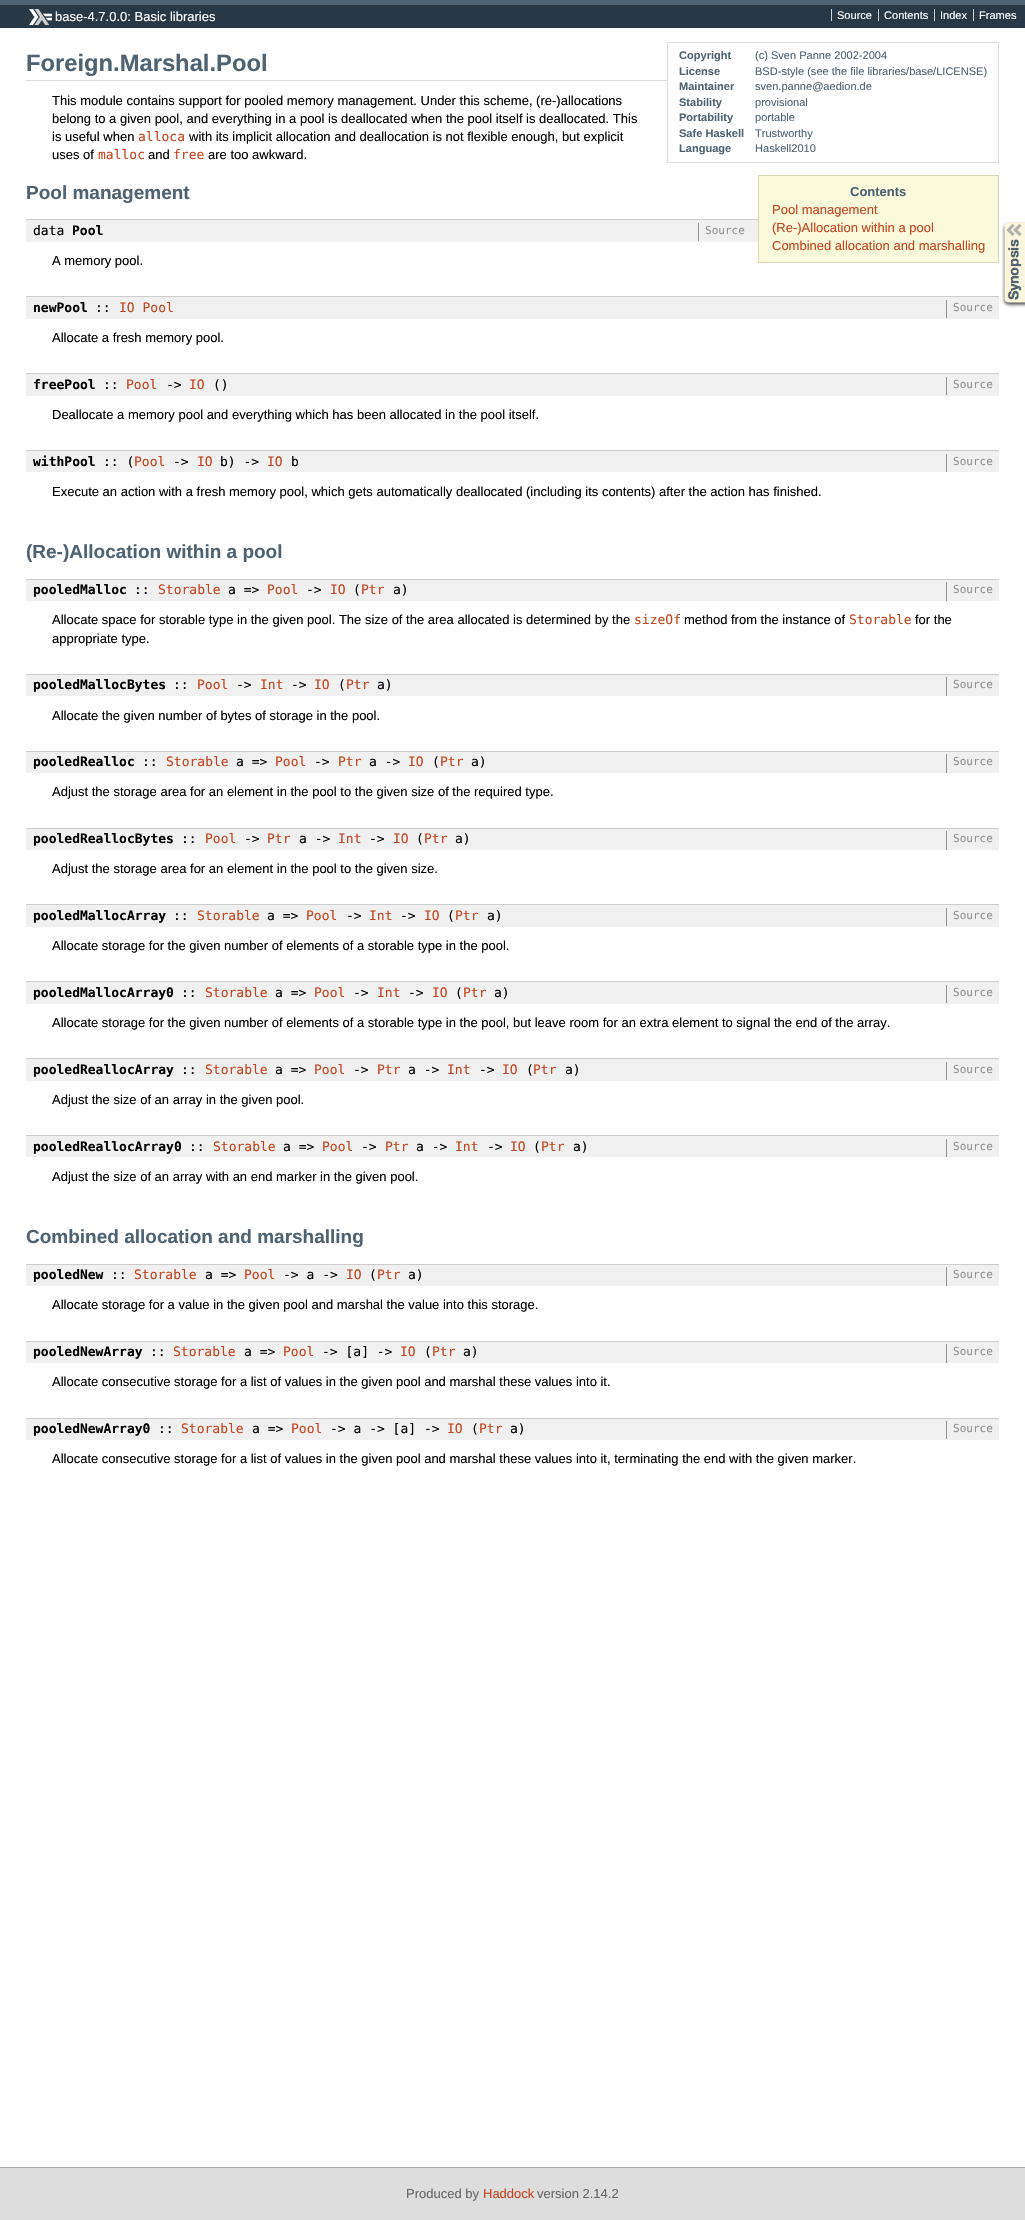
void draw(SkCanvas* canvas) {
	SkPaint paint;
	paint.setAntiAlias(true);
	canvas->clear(0xffffffff);
	paint.setColor(0xff293845);
	canvas->drawRect(SkRect::MakeXYWH(0, 5, 1025, 23), paint);
	paint.setColor(0xff4e6272);
	canvas->drawRect(SkRect::MakeXYWH(0, 0, 1025, 5), paint);
	canvas->drawImageRect(SkImages::DeferredFromEncodedData(SkData::MakeFromFileName("img1.png")), SkRect::MakeXYWH(29, 9, 23, 16), SkSamplingOptions());
	SkFont f1(fontMgr->matchFamilyStyle("Liberation Sans", SkFontStyle::Normal()), 13);
	f1.setSubpixel(true);
	paint.setColor(0xffffffff);
	canvas->drawString("base-4.7.0.0: Basic libraries", 55, 21, f1, paint);
	SkFont f2(fontMgr->matchFamilyStyle("Liberation Sans", SkFontStyle::Normal()), 11.05);
	f2.setSubpixel(true);
	canvas->drawString("Source", 837, 19, f2, paint);
	paint.setColor(0xffd5d5d5);
	canvas->drawRect(SkRect::MakeXYWH(831, 9, 1, 12), paint);
	paint.setColor(0xffffffff);
	canvas->drawString("Contents", 884, 19, f2, paint);
	paint.setColor(0xffd5d5d5);
	canvas->drawRect(SkRect::MakeXYWH(878, 9, 1, 12), paint);
	paint.setColor(0xffffffff);
	canvas->drawString("Index", 940, 19, f2, paint);
	paint.setColor(0xffd5d5d5);
	canvas->drawRect(SkRect::MakeXYWH(934, 9, 1, 12), paint);
	paint.setColor(0xffffffff);
	canvas->drawString("Frames", 979, 19, f2, paint);
	paint.setColor(0xffd5d5d5);
	canvas->drawRect(SkRect::MakeXYWH(973, 9, 1, 12), paint);
	paint.setColor(0xffdddddd);
	canvas->drawRect(SkRect::MakeXYWH(26, 80, 641, 1), paint);
	SkFont f3(fontMgr->matchFamilyStyle("Liberation Sans", SkFontStyle::Bold()), 23.75);
	f3.setSubpixel(true);
	paint.setColor(0xff4e6272);
	canvas->drawString("Foreign.Marshal.Pool", 26, 71, f3, paint);
	paint.setStroke(true);
	paint.setStrokeWidth(1);
	paint.setColor(0xffdddddd);
	canvas->drawRect(SkRect::MakeXYWH(667.5, 42.5, 331, 120), paint);
	SkFont f4(fontMgr->matchFamilyStyle("Liberation Sans", SkFontStyle::Bold()), 11.05);
	f4.setSubpixel(true);
	paint.setStroke(false);
	paint.setColor(0xff4e6272);
	canvas->drawString("Copyright", 679, 59, f4, paint);
	canvas->drawString("(c) Sven Panne 2002-2004", 755, 59, f2, paint);
	canvas->drawString("License", 679, 75, f4, paint);
	canvas->drawString("BSD-style (see the file libraries/base/LICENSE)", 755, 75, f2, paint);
	canvas->drawString("Maintainer", 679, 90, f4, paint);
	canvas->drawString("sven.panne@aedion.de", 755, 90, f2, paint);
	canvas->drawString("Stability", 679, 106, f4, paint);
	canvas->drawString("provisional", 755, 106, f2, paint);
	canvas->drawString("Portability", 679, 121, f4, paint);
	canvas->drawString("portable", 755, 121, f2, paint);
	canvas->drawString("Safe Haskell", 679, 137, f4, paint);
	canvas->drawString("Trustworthy", 755, 137, f2, paint);
	canvas->drawString("Language", 679, 152, f4, paint);
	canvas->drawString("Haskell2010", 755, 152, f2, paint);
	paint.setColor(0xff000000);
	canvas->drawString("This module contains support for pooled memory management. Under this scheme, (re-)allocations", 52, 105, f1, paint);
	canvas->drawString("belong to a given pool, and everything in a pool is deallocated when the pool itself is deallocated. This", 52, 123, f1, paint);
	canvas->drawString("is useful when", 52, 141, f1, paint);
	SkFont f5(fontMgr->matchFamilyStyle("DejaVu Sans Mono", SkFontStyle::Normal()), 13);
	f5.setSubpixel(true);
	paint.setColor(0xffc4451d);
	canvas->drawString("alloca", 138, 141, f5, paint);
	paint.setColor(0xff000000);
	canvas->drawString("with its implicit allocation and deallocation is not flexible enough, but explicit", 189, 141, f1, paint);
	canvas->drawString("uses of", 52, 159, f1, paint);
	paint.setColor(0xffc4451d);
	canvas->drawString("malloc", 98, 159, f5, paint);
	paint.setColor(0xff000000);
	canvas->drawString("and", 148, 159, f1, paint);
	paint.setColor(0xffc4451d);
	canvas->drawString("free", 173, 159, f5, paint);
	paint.setColor(0xff000000);
	canvas->drawString("are too awkward.", 208, 159, f1, paint);
	SkFont f6(fontMgr->matchFamilyStyle("Liberation Sans", SkFontStyle::Bold()), 19);
	f6.setSubpixel(true);
	paint.setColor(0xff4e6272);
	canvas->drawString("Pool management", 26, 199, f6, paint);
	paint.setColor(0xfff0f0f0);
	canvas->drawRect(SkRect::MakeXYWH(26, 220, 732, 22), paint);
	paint.setColor(0xffcccccc);
	canvas->drawRect(SkRect::MakeXYWH(26, 219, 732, 1), paint);
	paint.setColor(0xff000000);
	canvas->drawString("data", 33, 235, f5, paint);
	SkFont f7(fontMgr->matchFamilyStyle("DejaVu Sans Mono", SkFontStyle::Bold()), 13);
	f7.setSubpixel(true);
	canvas->drawString("Pool", 72, 235, f7, paint);
	paint.setColor(0xff919191);
	canvas->drawRect(SkRect::MakeXYWH(698, 223, 1, 18), paint);
	SkFont f8(fontMgr->matchFamilyStyle("DejaVu Sans Mono", SkFontStyle::Normal()), 11.05);
	f8.setSubpixel(true);
	canvas->drawString("Source", 705, 234, f8, paint);
	paint.setColor(0xff000000);
	canvas->drawString("A memory pool.", 52, 265, f1, paint);
	paint.setColor(0xfff0f0f0);
	canvas->drawRect(SkRect::MakeXYWH(26, 297, 973, 22), paint);
	paint.setColor(0xffcccccc);
	canvas->drawRect(SkRect::MakeXYWH(26, 296, 973, 1), paint);
	paint.setColor(0xff000000);
	canvas->drawString("newPool", 33, 312, f7, paint);
	canvas->drawString("::", 95, 312, f5, paint);
	paint.setColor(0xffc4451d);
	canvas->drawString("IO Pool", 119, 312, f5, paint);
	paint.setColor(0xff919191);
	canvas->drawRect(SkRect::MakeXYWH(946, 300, 1, 18), paint);
	canvas->drawString("Source", 953, 311, f8, paint);
	paint.setColor(0xff000000);
	canvas->drawString("Allocate a fresh memory pool.", 52, 342, f1, paint);
	paint.setColor(0xfff0f0f0);
	canvas->drawRect(SkRect::MakeXYWH(26, 374, 973, 22), paint);
	paint.setColor(0xffcccccc);
	canvas->drawRect(SkRect::MakeXYWH(26, 373, 973, 1), paint);
	paint.setColor(0xff000000);
	canvas->drawString("freePool", 33, 389, f7, paint);
	canvas->drawString("::", 103, 389, f5, paint);
	paint.setColor(0xffc4451d);
	canvas->drawString("Pool", 126, 389, f5, paint);
	paint.setColor(0xff000000);
	canvas->drawString("->", 166, 389, f5, paint);
	paint.setColor(0xffc4451d);
	canvas->drawString("IO", 189, 389, f5, paint);
	paint.setColor(0xff000000);
	canvas->drawString("()", 213, 389, f5, paint);
	paint.setColor(0xff919191);
	canvas->drawRect(SkRect::MakeXYWH(946, 377, 1, 18), paint);
	canvas->drawString("Source", 953, 388, f8, paint);
	paint.setColor(0xff000000);
	canvas->drawString("Deallocate a memory pool and everything which has been allocated in the pool itself.", 52, 419, f1, paint);
	paint.setColor(0xfff0f0f0);
	canvas->drawRect(SkRect::MakeXYWH(26, 451, 973, 21), paint);
	paint.setColor(0xffcccccc);
	canvas->drawRect(SkRect::MakeXYWH(26, 450, 973, 1), paint);
	paint.setColor(0xff000000);
	canvas->drawString("withPool", 33, 466, f7, paint);
	canvas->drawString(":: (", 103, 466, f5, paint);
	paint.setColor(0xffc4451d);
	canvas->drawString("Pool", 134, 466, f5, paint);
	paint.setColor(0xff000000);
	canvas->drawString("->", 173, 466, f5, paint);
	paint.setColor(0xffc4451d);
	canvas->drawString("IO", 197, 466, f5, paint);
	paint.setColor(0xff000000);
	canvas->drawString("b) ->", 220, 466, f5, paint);
	paint.setColor(0xffc4451d);
	canvas->drawString("IO", 267, 466, f5, paint);
	paint.setColor(0xff000000);
	canvas->drawString("b", 291, 466, f5, paint);
	paint.setColor(0xff919191);
	canvas->drawRect(SkRect::MakeXYWH(946, 454, 1, 18), paint);
	canvas->drawString("Source", 953, 465, f8, paint);
	paint.setColor(0xff000000);
	canvas->drawString("Execute an action with a fresh memory pool, which gets automatically deallocated (including its contents) after the action has finished.", 52, 496, f1, paint);
	paint.setColor(0xff4e6272);
	canvas->drawString("(Re-)Allocation within a pool", 26, 558, f6, paint);
	paint.setColor(0xfff0f0f0);
	canvas->drawRect(SkRect::MakeXYWH(26, 580, 973, 21), paint);
	paint.setColor(0xffcccccc);
	canvas->drawRect(SkRect::MakeXYWH(26, 579, 973, 1), paint);
	paint.setColor(0xff000000);
	canvas->drawString("pooledMalloc", 33, 594, f7, paint);
	canvas->drawString("::", 134, 594, f5, paint);
	paint.setColor(0xffc4451d);
	canvas->drawString("Storable", 158, 594, f5, paint);
	paint.setColor(0xff000000);
	canvas->drawString("a =>", 228, 594, f5, paint);
	paint.setColor(0xffc4451d);
	canvas->drawString("Pool", 267, 594, f5, paint);
	paint.setColor(0xff000000);
	canvas->drawString("->", 306, 594, f5, paint);
	paint.setColor(0xffc4451d);
	canvas->drawString("IO", 330, 594, f5, paint);
	paint.setColor(0xff000000);
	canvas->drawString("(", 353, 594, f5, paint);
	paint.setColor(0xffc4451d);
	canvas->drawString("Ptr", 361, 594, f5, paint);
	paint.setColor(0xff000000);
	canvas->drawString("a)", 393, 594, f5, paint);
	paint.setColor(0xff919191);
	canvas->drawRect(SkRect::MakeXYWH(946, 582, 1, 19), paint);
	canvas->drawString("Source", 953, 593, f8, paint);
	paint.setColor(0xff000000);
	canvas->drawString("Allocate space for storable type in the given pool. The size of the area allocated is determined by the", 52, 624, f1, paint);
	paint.setColor(0xffc4451d);
	canvas->drawString("sizeOf", 634, 624, f5, paint);
	paint.setColor(0xff000000);
	canvas->drawString("method from the instance of", 684, 624, f1, paint);
	paint.setColor(0xffc4451d);
	canvas->drawString("Storable", 849, 624, f5, paint);
	paint.setColor(0xff000000);
	canvas->drawString("for the", 915, 624, f1, paint);
	canvas->drawString("appropriate type.", 52, 643, f1, paint);
	paint.setColor(0xfff0f0f0);
	canvas->drawRect(SkRect::MakeXYWH(26, 675, 973, 21), paint);
	paint.setColor(0xffcccccc);
	canvas->drawRect(SkRect::MakeXYWH(26, 674, 973, 1), paint);
	paint.setColor(0xff000000);
	canvas->drawString("pooledMallocBytes", 33, 689, f7, paint);
	canvas->drawString("::", 173, 689, f5, paint);
	paint.setColor(0xffc4451d);
	canvas->drawString("Pool", 197, 689, f5, paint);
	paint.setColor(0xff000000);
	canvas->drawString("->", 236, 689, f5, paint);
	paint.setColor(0xffc4451d);
	canvas->drawString("Int", 260, 689, f5, paint);
	paint.setColor(0xff000000);
	canvas->drawString("->", 291, 689, f5, paint);
	paint.setColor(0xffc4451d);
	canvas->drawString("IO", 314, 689, f5, paint);
	paint.setColor(0xff000000);
	canvas->drawString("(", 338, 689, f5, paint);
	paint.setColor(0xffc4451d);
	canvas->drawString("Ptr", 346, 689, f5, paint);
	paint.setColor(0xff000000);
	canvas->drawString("a)", 377, 689, f5, paint);
	paint.setColor(0xff919191);
	canvas->drawRect(SkRect::MakeXYWH(946, 677, 1, 19), paint);
	canvas->drawString("Source", 953, 688, f8, paint);
	paint.setColor(0xff000000);
	canvas->drawString("Allocate the given number of bytes of storage in the pool.", 52, 720, f1, paint);
	paint.setColor(0xfff0f0f0);
	canvas->drawRect(SkRect::MakeXYWH(26, 752, 973, 21), paint);
	paint.setColor(0xffcccccc);
	canvas->drawRect(SkRect::MakeXYWH(26, 751, 973, 1), paint);
	paint.setColor(0xff000000);
	canvas->drawString("pooledRealloc", 33, 766, f7, paint);
	canvas->drawString("::", 142, 766, f5, paint);
	paint.setColor(0xffc4451d);
	canvas->drawString("Storable", 166, 766, f5, paint);
	paint.setColor(0xff000000);
	canvas->drawString("a =>", 236, 766, f5, paint);
	paint.setColor(0xffc4451d);
	canvas->drawString("Pool", 275, 766, f5, paint);
	paint.setColor(0xff000000);
	canvas->drawString("->", 314, 766, f5, paint);
	paint.setColor(0xffc4451d);
	canvas->drawString("Ptr", 338, 766, f5, paint);
	paint.setColor(0xff000000);
	canvas->drawString("a ->", 369, 766, f5, paint);
	paint.setColor(0xffc4451d);
	canvas->drawString("IO", 408, 766, f5, paint);
	paint.setColor(0xff000000);
	canvas->drawString("(", 432, 766, f5, paint);
	paint.setColor(0xffc4451d);
	canvas->drawString("Ptr", 440, 766, f5, paint);
	paint.setColor(0xff000000);
	canvas->drawString("a)", 471, 766, f5, paint);
	paint.setColor(0xff919191);
	canvas->drawRect(SkRect::MakeXYWH(946, 754, 1, 19), paint);
	canvas->drawString("Source", 953, 765, f8, paint);
	paint.setColor(0xff000000);
	canvas->drawString("Adjust the storage area for an element in the pool to the given size of the required type.", 52, 796, f1, paint);
	paint.setColor(0xfff0f0f0);
	canvas->drawRect(SkRect::MakeXYWH(26, 829, 973, 21), paint);
	paint.setColor(0xffcccccc);
	canvas->drawRect(SkRect::MakeXYWH(26, 828, 973, 1), paint);
	paint.setColor(0xff000000);
	canvas->drawString("pooledReallocBytes", 33, 843, f7, paint);
	canvas->drawString("::", 181, 843, f5, paint);
	paint.setColor(0xffc4451d);
	canvas->drawString("Pool", 205, 843, f5, paint);
	paint.setColor(0xff000000);
	canvas->drawString("->", 244, 843, f5, paint);
	paint.setColor(0xffc4451d);
	canvas->drawString("Ptr", 267, 843, f5, paint);
	paint.setColor(0xff000000);
	canvas->drawString("a ->", 299, 843, f5, paint);
	paint.setColor(0xffc4451d);
	canvas->drawString("Int", 338, 843, f5, paint);
	paint.setColor(0xff000000);
	canvas->drawString("->", 369, 843, f5, paint);
	paint.setColor(0xffc4451d);
	canvas->drawString("IO", 393, 843, f5, paint);
	paint.setColor(0xff000000);
	canvas->drawString("(", 416, 843, f5, paint);
	paint.setColor(0xffc4451d);
	canvas->drawString("Ptr", 424, 843, f5, paint);
	paint.setColor(0xff000000);
	canvas->drawString("a)", 455, 843, f5, paint);
	paint.setColor(0xff919191);
	canvas->drawRect(SkRect::MakeXYWH(946, 831, 1, 19), paint);
	canvas->drawString("Source", 953, 842, f8, paint);
	paint.setColor(0xff000000);
	canvas->drawString("Adjust the storage area for an element in the pool to the given size.", 52, 873, f1, paint);
	paint.setColor(0xfff0f0f0);
	canvas->drawRect(SkRect::MakeXYWH(26, 905, 973, 22), paint);
	paint.setColor(0xffcccccc);
	canvas->drawRect(SkRect::MakeXYWH(26, 904, 973, 1), paint);
	paint.setColor(0xff000000);
	canvas->drawString("pooledMallocArray", 33, 920, f7, paint);
	canvas->drawString("::", 173, 920, f5, paint);
	paint.setColor(0xffc4451d);
	canvas->drawString("Storable", 197, 920, f5, paint);
	paint.setColor(0xff000000);
	canvas->drawString("a =>", 267, 920, f5, paint);
	paint.setColor(0xffc4451d);
	canvas->drawString("Pool", 306, 920, f5, paint);
	paint.setColor(0xff000000);
	canvas->drawString("->", 346, 920, f5, paint);
	paint.setColor(0xffc4451d);
	canvas->drawString("Int", 369, 920, f5, paint);
	paint.setColor(0xff000000);
	canvas->drawString("->", 400, 920, f5, paint);
	paint.setColor(0xffc4451d);
	canvas->drawString("IO", 424, 920, f5, paint);
	paint.setColor(0xff000000);
	canvas->drawString("(", 447, 920, f5, paint);
	paint.setColor(0xffc4451d);
	canvas->drawString("Ptr", 455, 920, f5, paint);
	paint.setColor(0xff000000);
	canvas->drawString("a)", 487, 920, f5, paint);
	paint.setColor(0xff919191);
	canvas->drawRect(SkRect::MakeXYWH(946, 908, 1, 18), paint);
	canvas->drawString("Source", 953, 919, f8, paint);
	paint.setColor(0xff000000);
	canvas->drawString("Allocate storage for the given number of elements of a storable type in the pool.", 52, 950, f1, paint);
	paint.setColor(0xfff0f0f0);
	canvas->drawRect(SkRect::MakeXYWH(26, 982, 973, 22), paint);
	paint.setColor(0xffcccccc);
	canvas->drawRect(SkRect::MakeXYWH(26, 981, 973, 1), paint);
	paint.setColor(0xff000000);
	canvas->drawString("pooledMallocArray0", 33, 997, f7, paint);
	canvas->drawString("::", 181, 997, f5, paint);
	paint.setColor(0xffc4451d);
	canvas->drawString("Storable", 205, 997, f5, paint);
	paint.setColor(0xff000000);
	canvas->drawString("a =>", 275, 997, f5, paint);
	paint.setColor(0xffc4451d);
	canvas->drawString("Pool", 314, 997, f5, paint);
	paint.setColor(0xff000000);
	canvas->drawString("->", 353, 997, f5, paint);
	paint.setColor(0xffc4451d);
	canvas->drawString("Int", 377, 997, f5, paint);
	paint.setColor(0xff000000);
	canvas->drawString("->", 408, 997, f5, paint);
	paint.setColor(0xffc4451d);
	canvas->drawString("IO", 432, 997, f5, paint);
	paint.setColor(0xff000000);
	canvas->drawString("(", 455, 997, f5, paint);
	paint.setColor(0xffc4451d);
	canvas->drawString("Ptr", 463, 997, f5, paint);
	paint.setColor(0xff000000);
	canvas->drawString("a)", 494, 997, f5, paint);
	paint.setColor(0xff919191);
	canvas->drawRect(SkRect::MakeXYWH(946, 985, 1, 18), paint);
	canvas->drawString("Source", 953, 996, f8, paint);
	paint.setColor(0xff000000);
	canvas->drawString("Allocate storage for the given number of elements of a storable type in the pool, but leave room for an extra element to signal the end of the array.", 52, 1027, f1, paint);
	paint.setColor(0xfff0f0f0);
	canvas->drawRect(SkRect::MakeXYWH(26, 1059, 973, 22), paint);
	paint.setColor(0xffcccccc);
	canvas->drawRect(SkRect::MakeXYWH(26, 1058, 973, 1), paint);
	paint.setColor(0xff000000);
	canvas->drawString("pooledReallocArray", 33, 1074, f7, paint);
	canvas->drawString("::", 181, 1074, f5, paint);
	paint.setColor(0xffc4451d);
	canvas->drawString("Storable", 205, 1074, f5, paint);
	paint.setColor(0xff000000);
	canvas->drawString("a =>", 275, 1074, f5, paint);
	paint.setColor(0xffc4451d);
	canvas->drawString("Pool", 314, 1074, f5, paint);
	paint.setColor(0xff000000);
	canvas->drawString("->", 353, 1074, f5, paint);
	paint.setColor(0xffc4451d);
	canvas->drawString("Ptr", 377, 1074, f5, paint);
	paint.setColor(0xff000000);
	canvas->drawString("a ->", 408, 1074, f5, paint);
	paint.setColor(0xffc4451d);
	canvas->drawString("Int", 447, 1074, f5, paint);
	paint.setColor(0xff000000);
	canvas->drawString("->", 479, 1074, f5, paint);
	paint.setColor(0xffc4451d);
	canvas->drawString("IO", 502, 1074, f5, paint);
	paint.setColor(0xff000000);
	canvas->drawString("(", 526, 1074, f5, paint);
	paint.setColor(0xffc4451d);
	canvas->drawString("Ptr", 533, 1074, f5, paint);
	paint.setColor(0xff000000);
	canvas->drawString("a)", 565, 1074, f5, paint);
	paint.setColor(0xff919191);
	canvas->drawRect(SkRect::MakeXYWH(946, 1062, 1, 18), paint);
	canvas->drawString("Source", 953, 1073, f8, paint);
	paint.setColor(0xff000000);
	canvas->drawString("Adjust the size of an array in the given pool.", 52, 1104, f1, paint);
	paint.setColor(0xfff0f0f0);
	canvas->drawRect(SkRect::MakeXYWH(26, 1136, 973, 21), paint);
	paint.setColor(0xffcccccc);
	canvas->drawRect(SkRect::MakeXYWH(26, 1135, 973, 1), paint);
	paint.setColor(0xff000000);
	canvas->drawString("pooledReallocArray0", 33, 1151, f7, paint);
	canvas->drawString("::", 189, 1151, f5, paint);
	paint.setColor(0xffc4451d);
	canvas->drawString("Storable", 213, 1151, f5, paint);
	paint.setColor(0xff000000);
	canvas->drawString("a =>", 283, 1151, f5, paint);
	paint.setColor(0xffc4451d);
	canvas->drawString("Pool", 322, 1151, f5, paint);
	paint.setColor(0xff000000);
	canvas->drawString("->", 361, 1151, f5, paint);
	paint.setColor(0xffc4451d);
	canvas->drawString("Ptr", 385, 1151, f5, paint);
	paint.setColor(0xff000000);
	canvas->drawString("a ->", 416, 1151, f5, paint);
	paint.setColor(0xffc4451d);
	canvas->drawString("Int", 455, 1151, f5, paint);
	paint.setColor(0xff000000);
	canvas->drawString("->", 487, 1151, f5, paint);
	paint.setColor(0xffc4451d);
	canvas->drawString("IO", 510, 1151, f5, paint);
	paint.setColor(0xff000000);
	canvas->drawString("(", 533, 1151, f5, paint);
	paint.setColor(0xffc4451d);
	canvas->drawString("Ptr", 541, 1151, f5, paint);
	paint.setColor(0xff000000);
	canvas->drawString("a)", 573, 1151, f5, paint);
	paint.setColor(0xff919191);
	canvas->drawRect(SkRect::MakeXYWH(946, 1139, 1, 18), paint);
	canvas->drawString("Source", 953, 1150, f8, paint);
	paint.setColor(0xff000000);
	canvas->drawString("Adjust the size of an array with an end marker in the given pool.", 52, 1181, f1, paint);
	paint.setColor(0xff4e6272);
	canvas->drawString("Combined allocation and marshalling", 26, 1243, f6, paint);
	paint.setColor(0xfff0f0f0);
	canvas->drawRect(SkRect::MakeXYWH(26, 1265, 973, 21), paint);
	paint.setColor(0xffcccccc);
	canvas->drawRect(SkRect::MakeXYWH(26, 1264, 973, 1), paint);
	paint.setColor(0xff000000);
	canvas->drawString("pooledNew", 33, 1279, f7, paint);
	canvas->drawString("::", 111, 1279, f5, paint);
	paint.setColor(0xffc4451d);
	canvas->drawString("Storable", 134, 1279, f5, paint);
	paint.setColor(0xff000000);
	canvas->drawString("a =>", 205, 1279, f5, paint);
	paint.setColor(0xffc4451d);
	canvas->drawString("Pool", 244, 1279, f5, paint);
	paint.setColor(0xff000000);
	canvas->drawString("-> a ->", 283, 1279, f5, paint);
	paint.setColor(0xffc4451d);
	canvas->drawString("IO", 346, 1279, f5, paint);
	paint.setColor(0xff000000);
	canvas->drawString("(", 369, 1279, f5, paint);
	paint.setColor(0xffc4451d);
	canvas->drawString("Ptr", 377, 1279, f5, paint);
	paint.setColor(0xff000000);
	canvas->drawString("a)", 408, 1279, f5, paint);
	paint.setColor(0xff919191);
	canvas->drawRect(SkRect::MakeXYWH(946, 1267, 1, 19), paint);
	canvas->drawString("Source", 953, 1278, f8, paint);
	paint.setColor(0xff000000);
	canvas->drawString("Allocate storage for a value in the given pool and marshal the value into this storage.", 52, 1309, f1, paint);
	paint.setColor(0xfff0f0f0);
	canvas->drawRect(SkRect::MakeXYWH(26, 1342, 973, 21), paint);
	paint.setColor(0xffcccccc);
	canvas->drawRect(SkRect::MakeXYWH(26, 1341, 973, 1), paint);
	paint.setColor(0xff000000);
	canvas->drawString("pooledNewArray", 33, 1356, f7, paint);
	canvas->drawString("::", 150, 1356, f5, paint);
	paint.setColor(0xffc4451d);
	canvas->drawString("Storable", 173, 1356, f5, paint);
	paint.setColor(0xff000000);
	canvas->drawString("a =>", 244, 1356, f5, paint);
	paint.setColor(0xffc4451d);
	canvas->drawString("Pool", 283, 1356, f5, paint);
	paint.setColor(0xff000000);
	canvas->drawString("-> [a] ->", 322, 1356, f5, paint);
	paint.setColor(0xffc4451d);
	canvas->drawString("IO", 400, 1356, f5, paint);
	paint.setColor(0xff000000);
	canvas->drawString("(", 424, 1356, f5, paint);
	paint.setColor(0xffc4451d);
	canvas->drawString("Ptr", 432, 1356, f5, paint);
	paint.setColor(0xff000000);
	canvas->drawString("a)", 463, 1356, f5, paint);
	paint.setColor(0xff919191);
	canvas->drawRect(SkRect::MakeXYWH(946, 1344, 1, 19), paint);
	canvas->drawString("Source", 953, 1355, f8, paint);
	paint.setColor(0xff000000);
	canvas->drawString("Allocate consecutive storage for a list of values in the given pool and marshal these values into it.", 52, 1386, f1, paint);
	paint.setColor(0xfff0f0f0);
	canvas->drawRect(SkRect::MakeXYWH(26, 1419, 973, 21), paint);
	paint.setColor(0xffcccccc);
	canvas->drawRect(SkRect::MakeXYWH(26, 1418, 973, 1), paint);
	paint.setColor(0xff000000);
	canvas->drawString("pooledNewArray0", 33, 1433, f7, paint);
	canvas->drawString("::", 158, 1433, f5, paint);
	paint.setColor(0xffc4451d);
	canvas->drawString("Storable", 181, 1433, f5, paint);
	paint.setColor(0xff000000);
	canvas->drawString("a =>", 252, 1433, f5, paint);
	paint.setColor(0xffc4451d);
	canvas->drawString("Pool", 291, 1433, f5, paint);
	paint.setColor(0xff000000);
	canvas->drawString("-> a -> [a] ->", 330, 1433, f5, paint);
	paint.setColor(0xffc4451d);
	canvas->drawString("IO", 447, 1433, f5, paint);
	paint.setColor(0xff000000);
	canvas->drawString("(", 471, 1433, f5, paint);
	paint.setColor(0xffc4451d);
	canvas->drawString("Ptr", 479, 1433, f5, paint);
	paint.setColor(0xff000000);
	canvas->drawString("a)", 510, 1433, f5, paint);
	paint.setColor(0xff919191);
	canvas->drawRect(SkRect::MakeXYWH(946, 1421, 1, 18), paint);
	canvas->drawString("Source", 953, 1432, f8, paint);
	paint.setColor(0xff000000);
	canvas->drawString("Allocate consecutive storage for a list of values in the given pool and marshal these values into it, terminating the end with the given marker.", 52, 1463, f1, paint);
	paint.setColor(0xfffaf9dc);
	canvas->drawRect(SkRect::MakeXYWH(758.5, 175.5, 240, 87), paint);
	paint.setStroke(true);
	paint.setColor(0xffd8d7ad);
	canvas->drawRect(SkRect::MakeXYWH(758.5, 175.5, 240, 87), paint);
	SkFont f9(fontMgr->matchFamilyStyle("Liberation Sans", SkFontStyle::Bold()), 13);
	f9.setSubpixel(true);
	paint.setStroke(false);
	paint.setColor(0xff4e6272);
	canvas->drawString("Contents", 850, 196, f9, paint);
	paint.setColor(0xffc4451d);
	canvas->drawString("Pool management", 772, 214, f1, paint);
	canvas->drawString("(Re-)Allocation within a pool", 772, 232, f1, paint);
	canvas->drawString("Combined allocation and marshalling", 772, 250, f1, paint);
	canvas->drawImageRect(SkImages::DeferredFromEncodedData(SkData::MakeFromFileName("img2.png")), SkRect::MakeXYWH(1002, 222, 23, 86), SkSamplingOptions());
	paint.setColor(0xffdddddd);
	canvas->drawRect(SkRect::MakeXYWH(0, 2168, 1025, 52), paint);
	paint.setColor(0xffaaaaaa);
	canvas->drawRect(SkRect::MakeXYWH(0, 2167, 1025, 1), paint);
	paint.setColor(0xff666666);
	canvas->drawString("Produced by", 406, 2198, f1, paint);
	paint.setColor(0xffc4451d);
	canvas->drawString("Haddock", 483, 2198, f1, paint);
	paint.setColor(0xff666666);
	canvas->drawString("version 2.14.2", 537, 2198, f1, paint);
}
